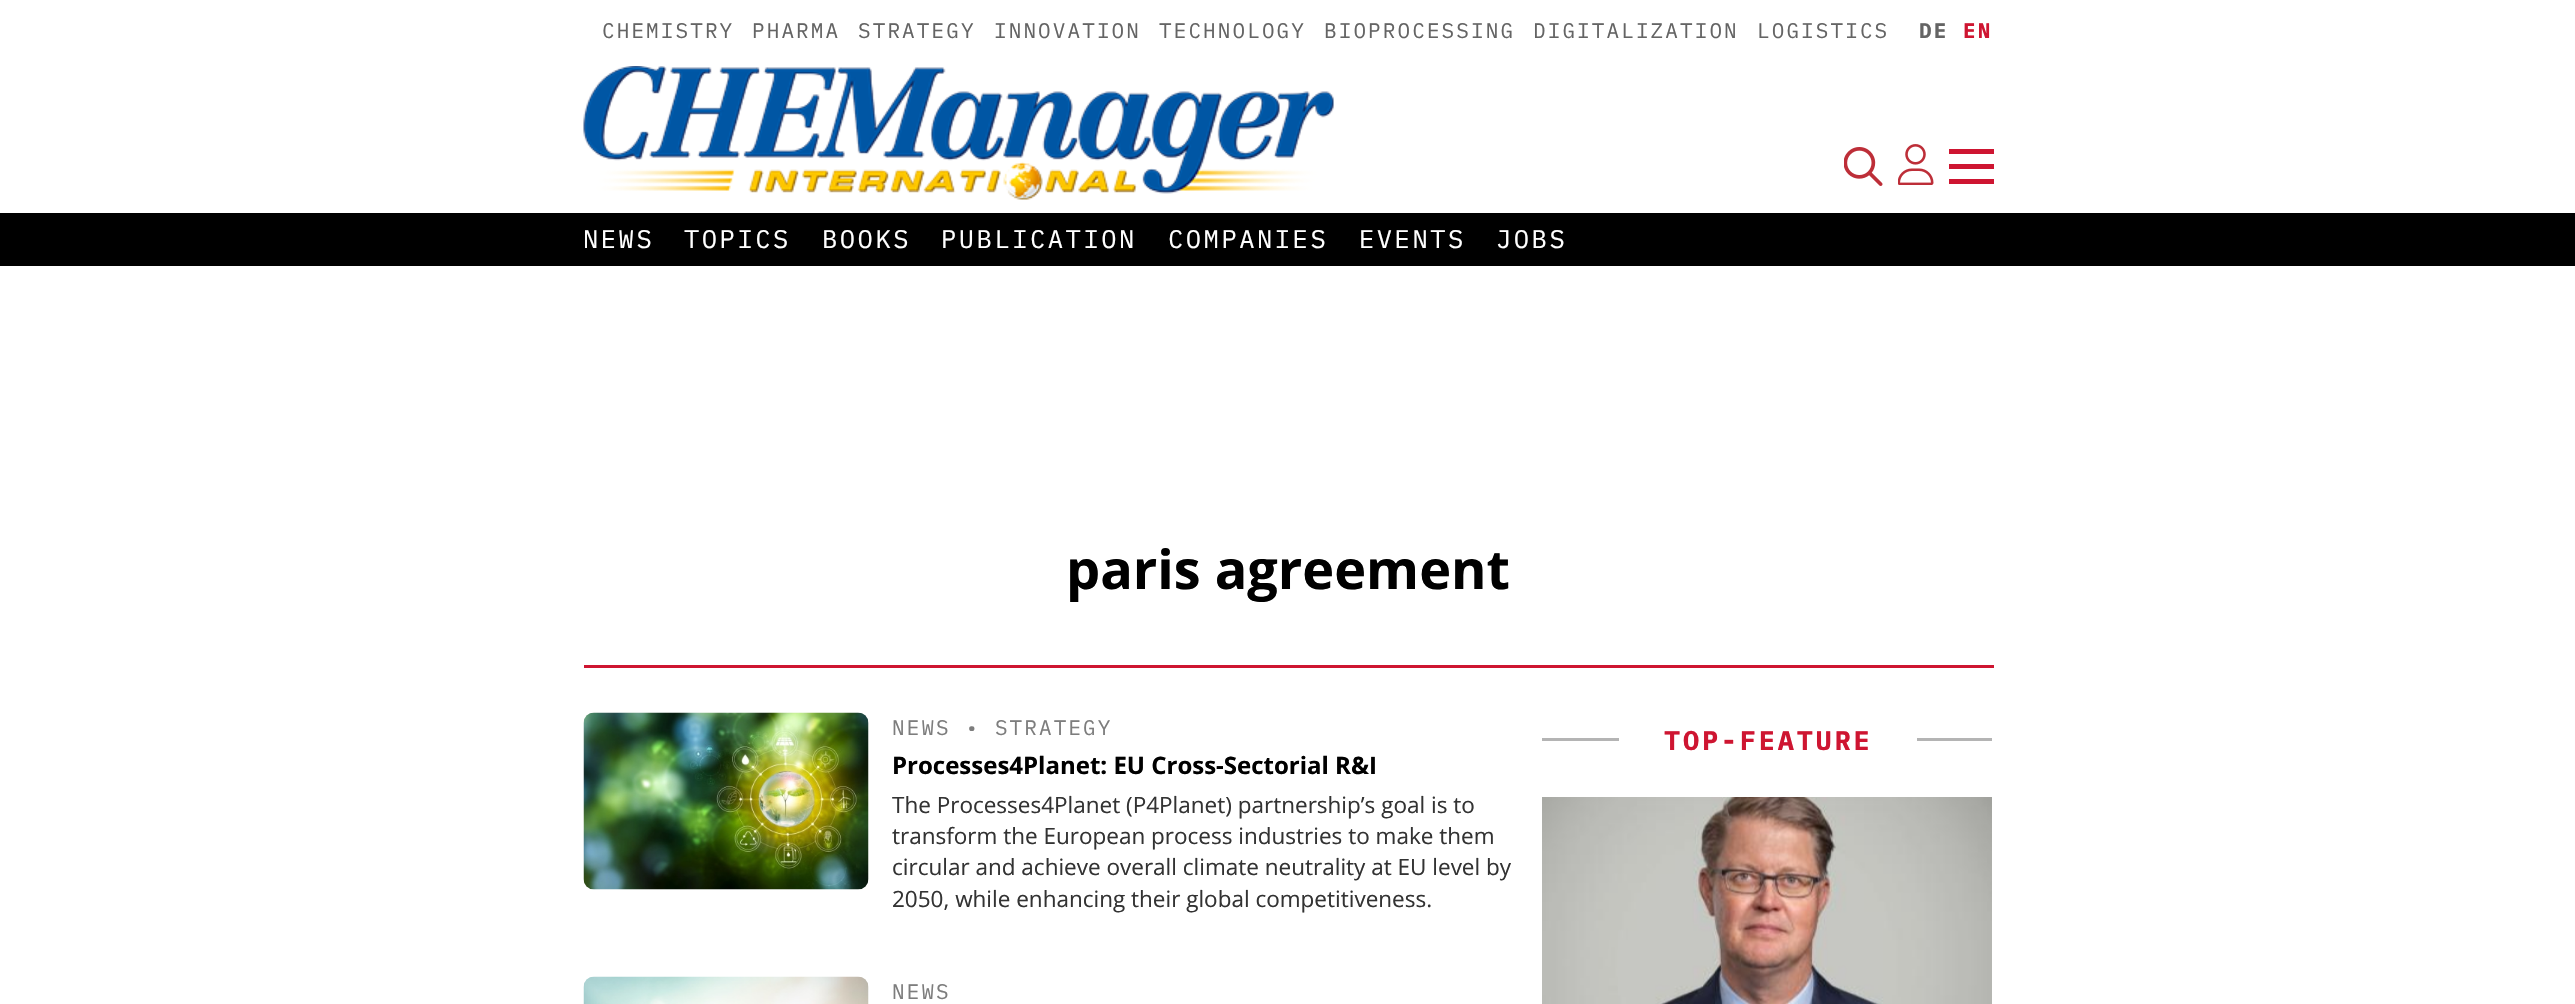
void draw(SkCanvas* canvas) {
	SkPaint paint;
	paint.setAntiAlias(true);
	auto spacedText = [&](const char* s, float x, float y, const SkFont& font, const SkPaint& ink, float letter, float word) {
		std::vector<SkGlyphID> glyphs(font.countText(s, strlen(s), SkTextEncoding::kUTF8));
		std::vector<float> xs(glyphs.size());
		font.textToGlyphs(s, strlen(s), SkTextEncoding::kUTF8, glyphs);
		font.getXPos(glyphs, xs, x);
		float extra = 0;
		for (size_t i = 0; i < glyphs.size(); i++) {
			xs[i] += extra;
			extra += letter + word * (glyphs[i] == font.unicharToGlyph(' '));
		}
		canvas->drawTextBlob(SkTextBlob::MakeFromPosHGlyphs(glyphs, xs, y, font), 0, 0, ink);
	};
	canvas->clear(0xffffffff);
	SkFont f1(fontMgr->matchFamilyStyle("IBM Plex Mono", SkFontStyle::Normal()), 21);
	f1.setSubpixel(true);
	paint.setColor(0xff646464);
	spacedText("CHEMISTRY", 602, 38, f1, paint, 2.1, 0);
	spacedText("PHARMA", 752, 38, f1, paint, 2.1, 0);
	spacedText("STRATEGY", 858, 38, f1, paint, 2.1, 0);
	spacedText("INNOVATION", 994, 38, f1, paint, 2.1, 0);
	spacedText("TECHNOLOGY", 1159, 38, f1, paint, 2.1, 0);
	spacedText("BIOPROCESSING", 1324, 38, f1, paint, 2.1, 0);
	spacedText("DIGITALIZATION", 1533, 38, f1, paint, 2.1, 0);
	spacedText("LOGISTICS", 1757, 38, f1, paint, 2.1, 0);
	SkFont f2(fontMgr->matchFamilyStyle("IBM Plex Mono", SkFontStyle::Bold()), 21);
	f2.setSubpixel(true);
	spacedText("DE", 1919, 38, f2, paint, 2.1, 0);
	paint.setColor(0xffce1531);
	spacedText("EN", 1963, 38, f2, paint, 2.1, 0);
	canvas->drawImageRect(SkImages::DeferredFromEncodedData(SkData::MakeFromFileName("img1.png")), SkRect::MakeXYWH(583, 66, 751, 134), SkSamplingOptions());
	canvas->drawImageRect(SkImages::DeferredFromEncodedData(SkData::MakeFromFileName("img2.png")), SkRect::MakeXYWH(1844, 147, 39, 39), SkSamplingOptions());
	canvas->drawImageRect(SkImages::DeferredFromEncodedData(SkData::MakeFromFileName("img3.png")), SkRect::MakeXYWH(1898, 144, 36, 41), SkSamplingOptions());
	canvas->drawRect(SkRect::MakeXYWH(1949, 149, 45, 5), paint);
	canvas->drawRect(SkRect::MakeXYWH(1949, 164, 45, 5), paint);
	canvas->drawRect(SkRect::MakeXYWH(1949, 179, 45, 5), paint);
	paint.setColor(0xff000000);
	canvas->drawRect(SkRect::MakeXYWH(0, 213, 2575, 53), paint);
	SkFont f3(fontMgr->matchFamilyStyle("IBM Plex Mono", SkFontStyle::Normal()), 25.5);
	f3.setSubpixel(true);
	paint.setColor(0xffffffff);
	spacedText("NEWS", 583, 248, f3, paint, 2.5, 0);
	spacedText("TOPICS", 684, 248, f3, paint, 2.5, 0);
	spacedText("BOOKS", 822, 248, f3, paint, 2.5, 0);
	spacedText("PUBLICATION", 941, 248, f3, paint, 2.5, 0);
	spacedText("COMPANIES", 1168, 248, f3, paint, 2.5, 0);
	spacedText("EVENTS", 1359, 248, f3, paint, 2.5, 0);
	spacedText("JOBS", 1496, 248, f3, paint, 2.5, 0);
	paint.setColor(0xffce1531);
	canvas->drawRect(SkRect::MakeXYWH(584, 665, 1410, 3), paint);
	SkFont f4(fontMgr->matchFamilyStyle("Open Sans", SkFontStyle::Bold()), 54);
	f4.setSubpixel(true);
	paint.setColor(0xff000000);
	canvas->drawString("paris agreement", 1066, 589, f4, paint);
	canvas->drawImageRect(SkImages::DeferredFromEncodedData(SkData::MakeFromFileName("img4.png")), SkRect::MakeXYWH(583, 712, 286, 178), SkSamplingOptions());
	paint.setColor(0xff7d7d7d);
	spacedText("NEWS • STRATEGY", 892, 735, f1, paint, 2.1, 0);
	SkFont f5(fontMgr->matchFamilyStyle("Open Sans", SkFontStyle::Bold()), 24);
	f5.setSubpixel(true);
	paint.setColor(0xff000000);
	canvas->drawString("Processes4Planet: EU Cross-Sectorial R&I", 892, 774, f5, paint);
	SkFont f6(fontMgr->matchFamilyStyle("Open Sans", SkFontStyle::Normal()), 22.5);
	f6.setSubpixel(true);
	paint.setColor(0xff333333);
	canvas->drawString("The Processes4Planet (P4Planet) partnership’s goal is to", 892, 813, f6, paint);
	canvas->drawString("transform the European process industries to make them", 892, 844, f6, paint);
	canvas->drawString("circular and achieve overall climate neutrality at EU level by", 892, 875, f6, paint);
	canvas->drawString("2050, while enhancing their global competitiveness.", 892, 907, f6, paint);
	canvas->drawImageRect(SkImages::DeferredFromEncodedData(SkData::MakeFromFileName("img5.png")), SkRect::MakeXYWH(583, 976, 286, 28), SkSamplingOptions());
	paint.setColor(0xff7d7d7d);
	spacedText("NEWS", 892, 999, f1, paint, 2.1, 0);
	paint.setColor(0xffb4b4b4);
	canvas->drawRect(SkRect::MakeXYWH(1542, 738, 450, 3), paint);
	paint.setColor(0xffffffff);
	canvas->drawRect(SkRect::MakeXYWH(1619, 738, 298, 3), paint);
	SkFont f7(fontMgr->matchFamilyStyle("IBM Plex Mono", SkFontStyle::Bold()), 27);
	f7.setSubpixel(true);
	paint.setColor(0xffce1531);
	spacedText("TOP-FEATURE", 1664, 750, f7, paint, 2.75, 0);
	canvas->drawImageRect(SkImages::DeferredFromEncodedData(SkData::MakeFromFileName("img6.png")), SkRect::MakeXYWH(1542, 797, 450, 207), SkSamplingOptions());
}
